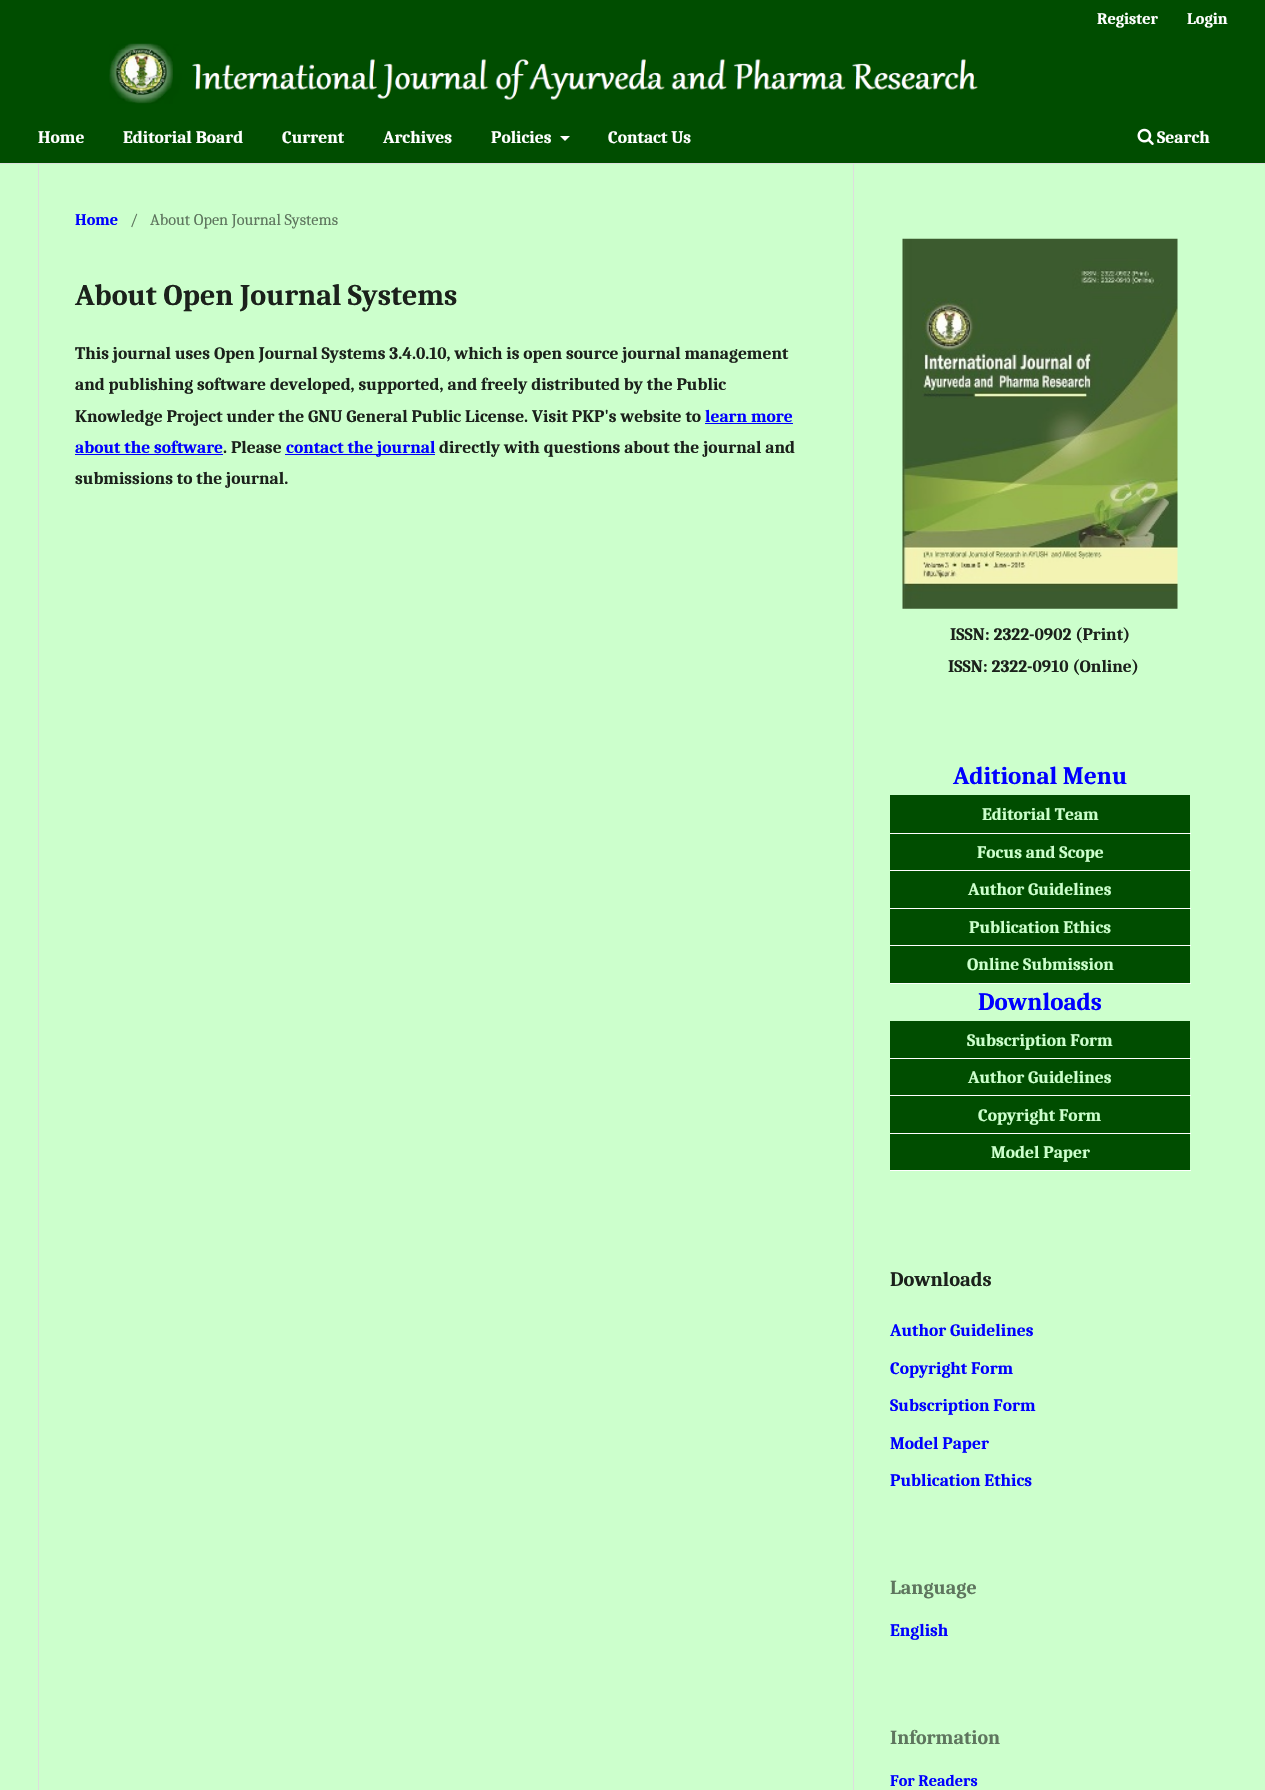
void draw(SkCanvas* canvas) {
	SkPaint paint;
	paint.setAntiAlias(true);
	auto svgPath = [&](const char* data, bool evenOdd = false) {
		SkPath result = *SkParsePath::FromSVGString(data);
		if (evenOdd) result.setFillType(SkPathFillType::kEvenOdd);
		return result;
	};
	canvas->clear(0xffccffcc);
	paint.setColor(0xff004d00);
	canvas->drawRect(SkRect::MakeXYWH(0, 0, 1265, 163), paint);
	paint.setColor(0xffdddddd);
	canvas->drawRect(SkRect::MakeXYWH(0, 163, 1265, 1), paint);
	SkFont f1(fontMgr->matchFamilyStyle("Caladea", SkFontStyle::Bold()), 16.25);
	f1.setSubpixel(true);
	paint.setColor(0xffffffff);
	canvas->drawString("Register", 1097, 24, f1, paint);
	canvas->drawString("Login", 1187, 24, f1, paint);
	SkFont f2(fontMgr->matchFamilyStyle("Caladea", SkFontStyle::Bold()), 17.5);
	f2.setSubpixel(true);
	canvas->drawString("Home", 38, 143, f2, paint);
	canvas->drawString("Editorial Board", 123, 143, f2, paint);
	canvas->drawString("Current", 282, 143, f2, paint);
	canvas->drawString("Archives", 383, 143, f2, paint);
	canvas->drawString("Policies", 491, 143, f2, paint);
	canvas->drawPath(svgPath("M560 136H570L565 141Z"), paint);
	canvas->drawString("Contact Us", 608, 143, f2, paint);
	canvas->drawImageRect(SkImages::DeferredFromEncodedData(SkData::MakeFromFileName("img1.png")), SkRect::MakeXYWH(1137, 128, 17, 17), SkSamplingOptions());
	canvas->drawString("Search", 1157, 143, f2, paint);
	canvas->drawImageRect(SkImages::DeferredFromEncodedData(SkData::MakeFromFileName("img2.png")), SkRect::MakeXYWH(109, 43, 869, 61), SkSamplingOptions());
	paint.setColor(0xffdddddd);
	canvas->drawRect(SkRect::MakeXYWH(38, 164, 1, 1626), paint);
	paint.setColor(0xff0000ff);
	canvas->drawString("Home", 75, 225, f1, paint);
	SkFont f3(fontMgr->matchFamilyStyle("Caladea", SkFontStyle::Normal()), 16.25);
	f3.setSubpixel(true);
	paint.setColor(0xff5e755e);
	canvas->drawString("/", 130, 225, f3, paint);
	canvas->drawString("About Open Journal Systems", 150, 225, f3, paint);
	SkFont f4(fontMgr->matchFamilyStyle("Caladea", SkFontStyle::Bold()), 30);
	f4.setSubpixel(true);
	paint.setColor(0xff1b211b);
	canvas->drawString("About Open Journal Systems", 75, 305, f4, paint);
	canvas->drawString("This journal uses Open Journal Systems 3.4.0.10, which is open source journal management", 75, 359, f2, paint);
	canvas->drawString("and publishing software developed, supported, and freely distributed by the Public", 75, 390, f2, paint);
	canvas->drawString("Knowledge Project under the GNU General Public License. Visit PKP's website to", 75, 422, f2, paint);
	paint.setColor(0xff0000ff);
	canvas->drawString("learn more", 705, 422, f2, paint);
	canvas->drawRect(SkRect::MakeXYWH(705, 423, 88, 1), paint);
	canvas->drawString("about the software", 75, 453, f2, paint);
	canvas->drawRect(SkRect::MakeXYWH(75, 454, 148, 1), paint);
	paint.setColor(0xff1b211b);
	canvas->drawString(". Please", 223, 453, f2, paint);
	paint.setColor(0xff0000ff);
	canvas->drawRect(SkRect::MakeXYWH(285, 454, 150, 1), paint);
	canvas->drawString("contact the journal", 286, 453, f2, paint);
	paint.setColor(0xff1b211b);
	canvas->drawString("directly with questions about the journal and", 439, 453, f2, paint);
	canvas->drawString("submissions to the journal.", 75, 484, f2, paint);
	paint.setColor(0xffdddddd);
	canvas->drawRect(SkRect::MakeXYWH(853, 164, 1, 1626), paint);
	canvas->drawImageRect(SkImages::DeferredFromEncodedData(SkData::MakeFromFileName("img3.png")), SkRect::MakeXYWH(902, 238, 276, 371), SkSamplingOptions());
	paint.setColor(0xff1b211b);
	canvas->drawString("ISSN: 2322-0902 (Print)", 950, 640, f2, paint);
	canvas->drawString("ISSN: 2322-0910 (Online)", 948, 672, f2, paint);
	SkFont f5(fontMgr->matchFamilyStyle("Caladea", SkFontStyle::Bold()), 25);
	f5.setSubpixel(true);
	paint.setColor(0xff0000ff);
	canvas->drawString("Aditional Menu", 953, 784, f5, paint);
	paint.setColor(0xff004d00);
	canvas->drawRect(SkRect::MakeXYWH(890, 795, 300, 38), paint);
	paint.setColor(0xffffffff);
	canvas->drawRect(SkRect::MakeXYWH(890, 833, 301, 1), paint);
	paint.setColor(0xffccffcc);
	canvas->drawString("Editorial Team", 982, 820, f2, paint);
	paint.setColor(0xff004d00);
	canvas->drawRect(SkRect::MakeXYWH(890, 834, 300, 36), paint);
	paint.setColor(0xffffffff);
	canvas->drawRect(SkRect::MakeXYWH(890, 870, 301, 1), paint);
	paint.setColor(0xffccffcc);
	canvas->drawString("Focus and Scope", 977, 858, f2, paint);
	paint.setColor(0xff004d00);
	canvas->drawRect(SkRect::MakeXYWH(890, 871, 300, 37), paint);
	paint.setColor(0xffffffff);
	canvas->drawRect(SkRect::MakeXYWH(890, 908, 301, 1), paint);
	paint.setColor(0xffccffcc);
	canvas->drawString("Author Guidelines", 968, 895, f2, paint);
	paint.setColor(0xff004d00);
	canvas->drawRect(SkRect::MakeXYWH(890, 909, 300, 36), paint);
	paint.setColor(0xffffffff);
	canvas->drawRect(SkRect::MakeXYWH(890, 945, 301, 1), paint);
	paint.setColor(0xffccffcc);
	canvas->drawString("Publication Ethics", 969, 933, f2, paint);
	paint.setColor(0xff004d00);
	canvas->drawRect(SkRect::MakeXYWH(890, 946, 300, 37), paint);
	paint.setColor(0xffffffff);
	canvas->drawRect(SkRect::MakeXYWH(890, 983, 301, 1), paint);
	paint.setColor(0xffccffcc);
	canvas->drawString("Online Submission", 967, 970, f2, paint);
	paint.setColor(0xff0000ff);
	canvas->drawString("Downloads", 978, 1010, f5, paint);
	paint.setColor(0xff004d00);
	canvas->drawRect(SkRect::MakeXYWH(890, 1021, 300, 37), paint);
	paint.setColor(0xffffffff);
	canvas->drawRect(SkRect::MakeXYWH(890, 1058, 301, 1), paint);
	paint.setColor(0xffccffcc);
	canvas->drawString("Subscription Form", 967, 1046, f2, paint);
	paint.setColor(0xff004d00);
	canvas->drawRect(SkRect::MakeXYWH(890, 1059, 300, 36), paint);
	paint.setColor(0xffffffff);
	canvas->drawRect(SkRect::MakeXYWH(890, 1095, 301, 1), paint);
	paint.setColor(0xffccffcc);
	canvas->drawString("Author Guidelines", 968, 1083, f2, paint);
	paint.setColor(0xff004d00);
	canvas->drawRect(SkRect::MakeXYWH(890, 1096, 300, 37), paint);
	paint.setColor(0xffffffff);
	canvas->drawRect(SkRect::MakeXYWH(890, 1133, 301, 1), paint);
	paint.setColor(0xffccffcc);
	canvas->drawString("Copyright Form", 978, 1121, f2, paint);
	paint.setColor(0xff004d00);
	canvas->drawRect(SkRect::MakeXYWH(890, 1134, 300, 36), paint);
	paint.setColor(0xffffffff);
	canvas->drawRect(SkRect::MakeXYWH(890, 1170, 301, 1), paint);
	paint.setColor(0xffccffcc);
	canvas->drawString("Model Paper", 991, 1158, f2, paint);
	SkFont f6(fontMgr->matchFamilyStyle("Caladea", SkFontStyle::Bold()), 20.5);
	f6.setSubpixel(true);
	paint.setColor(0xff1b211b);
	canvas->drawString("Downloads", 890, 1286, f6, paint);
	paint.setColor(0xff0000ff);
	canvas->drawString("Author Guidelines", 890, 1336, f2, paint);
	canvas->drawString("Copyright Form", 890, 1374, f2, paint);
	canvas->drawString("Subscription Form", 890, 1411, f2, paint);
	canvas->drawString("Model Paper", 890, 1449, f2, paint);
	canvas->drawString("Publication Ethics", 890, 1486, f2, paint);
	SkFont f7(fontMgr->matchFamilyStyle("Caladea", SkFontStyle::Bold()), 20);
	f7.setSubpixel(true);
	paint.setColor(0xff5e755e);
	canvas->drawString("Language", 890, 1594, f7, paint);
	paint.setColor(0xff0000ff);
	canvas->drawString("English", 890, 1636, f2, paint);
	paint.setColor(0xff5e755e);
	canvas->drawString("Information", 890, 1744, f7, paint);
	paint.setColor(0xff0000ff);
	canvas->drawString("For Readers", 890, 1786, f1, paint);
}
